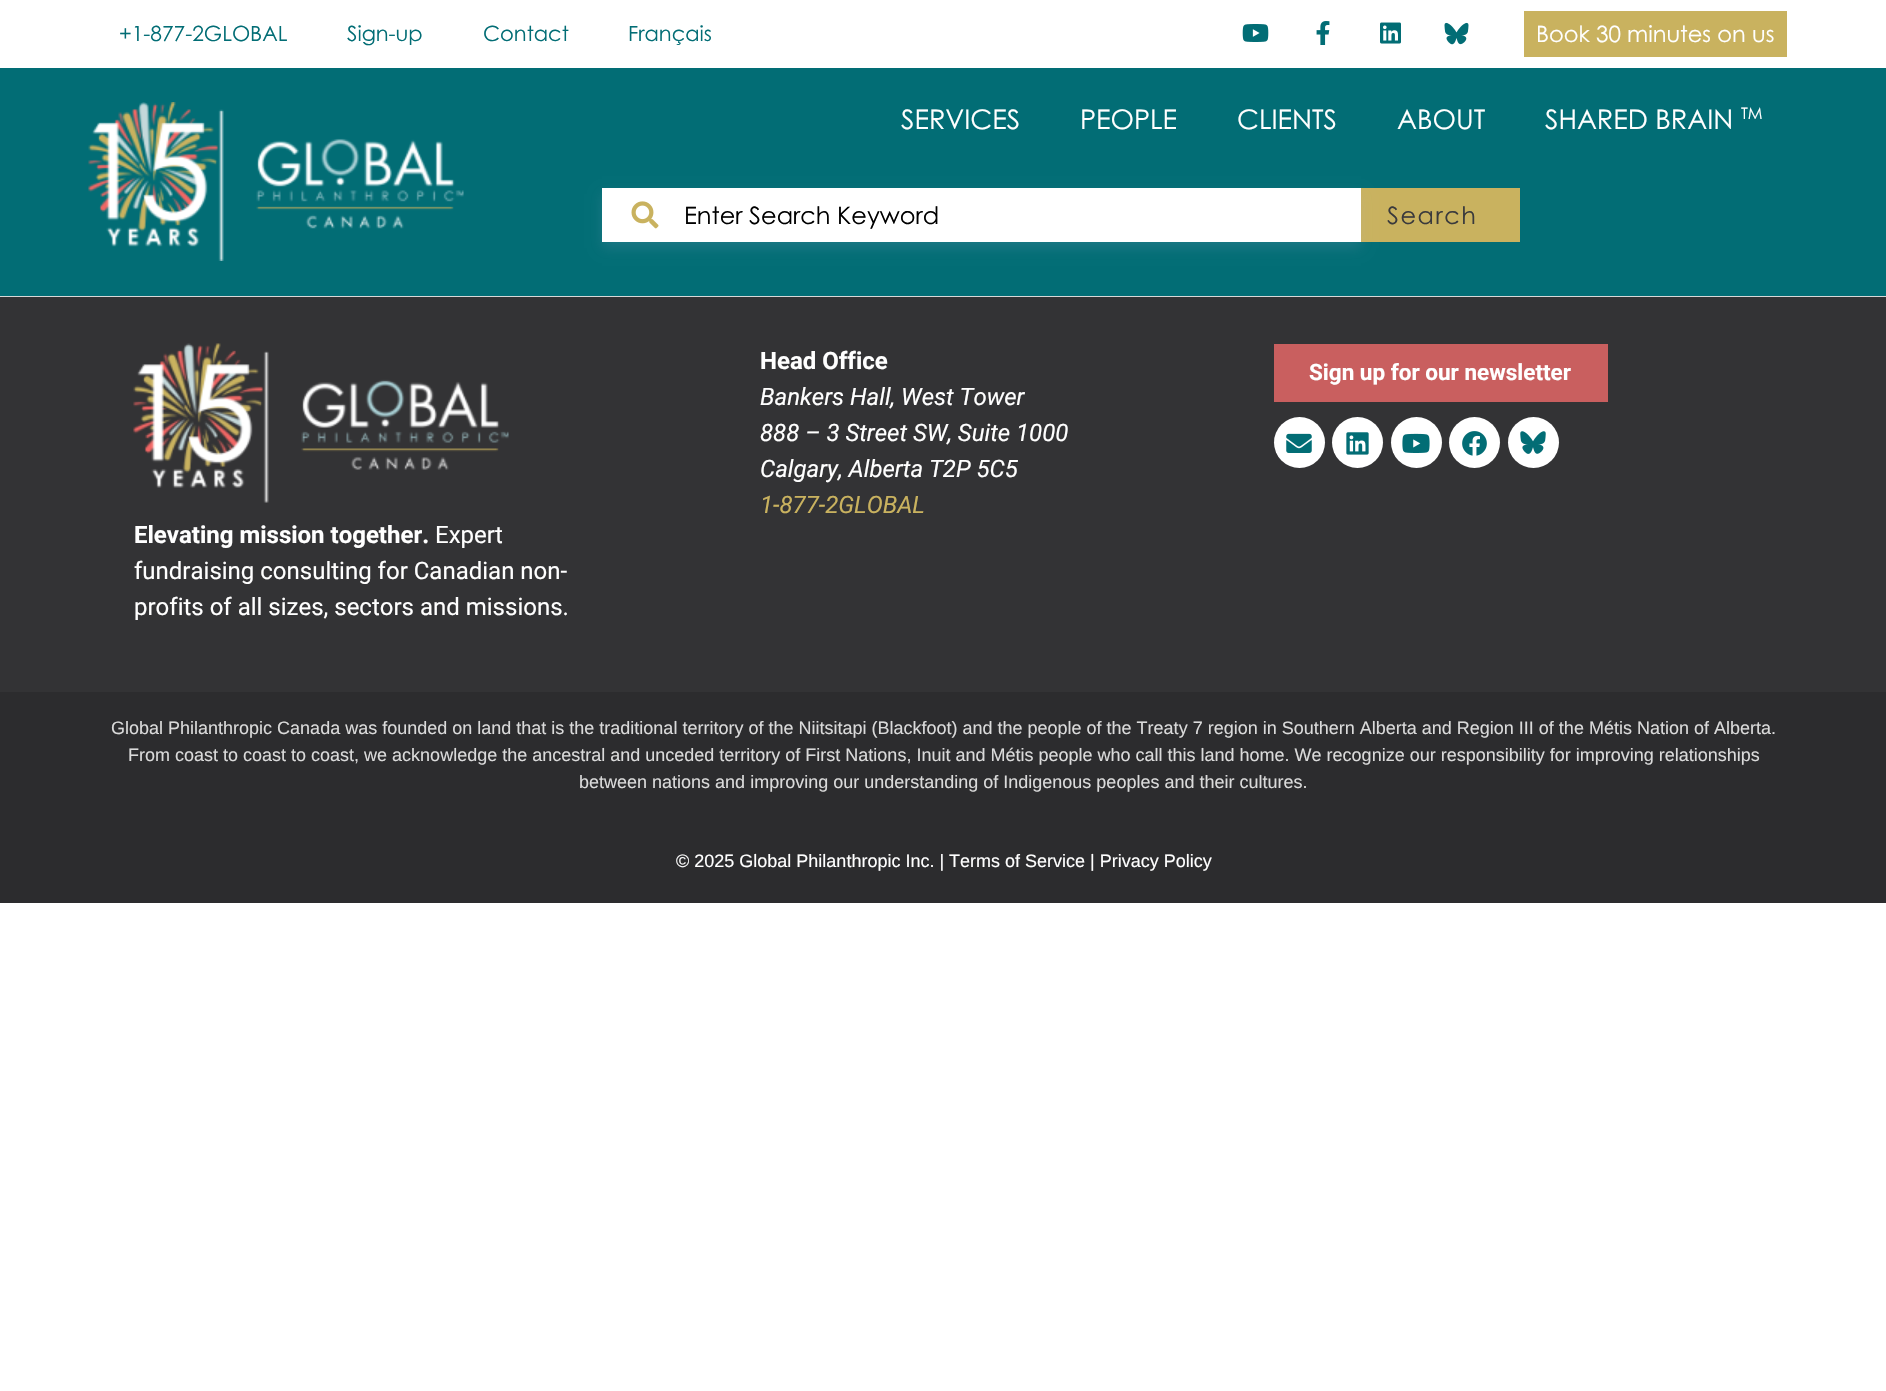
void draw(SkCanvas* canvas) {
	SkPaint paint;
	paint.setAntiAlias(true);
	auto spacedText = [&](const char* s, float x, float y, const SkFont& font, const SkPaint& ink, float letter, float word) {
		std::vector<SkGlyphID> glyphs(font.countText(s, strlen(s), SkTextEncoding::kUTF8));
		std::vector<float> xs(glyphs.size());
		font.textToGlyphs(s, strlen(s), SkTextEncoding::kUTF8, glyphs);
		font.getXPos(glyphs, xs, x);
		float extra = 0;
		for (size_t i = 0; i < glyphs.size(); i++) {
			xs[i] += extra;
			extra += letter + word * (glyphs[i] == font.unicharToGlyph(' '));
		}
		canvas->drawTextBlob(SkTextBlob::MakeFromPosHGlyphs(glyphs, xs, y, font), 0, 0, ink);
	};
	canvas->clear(0xffffffff);
	SkFont f1(fontMgr->matchFamilyStyle("Century Gothic", SkFontStyle::Normal()), 21);
	f1.setSubpixel(true);
	paint.setColor(0xff026d75);
	canvas->drawString("+1-877-2GLOBAL", 119, 41, f1, paint);
	canvas->drawString("Sign-up", 347, 41, f1, paint);
	canvas->drawString("Contact", 483, 41, f1, paint);
	canvas->drawString("Français", 628, 41, f1, paint);
	canvas->drawImageRect(SkImages::DeferredFromEncodedData(SkData::MakeFromFileName("img1.png")), SkRect::MakeXYWH(1242, 24, 27, 18), SkSamplingOptions());
	canvas->drawImageRect(SkImages::DeferredFromEncodedData(SkData::MakeFromFileName("img2.png")), SkRect::MakeXYWH(1316, 21, 14, 24), SkSamplingOptions());
	canvas->drawImageRect(SkImages::DeferredFromEncodedData(SkData::MakeFromFileName("img3.png")), SkRect::MakeXYWH(1380, 22, 21, 22), SkSamplingOptions());
	canvas->drawImageRect(SkImages::DeferredFromEncodedData(SkData::MakeFromFileName("img4.png")), SkRect::MakeXYWH(1444, 22, 25, 23), SkSamplingOptions());
	paint.setColor(0xffc9b25f);
	canvas->drawRect(SkRect::MakeXYWH(1524, 11, 263, 46), paint);
	SkFont f2(fontMgr->matchFamilyStyle("Century Gothic", SkFontStyle::Normal()), 22.5);
	f2.setSubpixel(true);
	paint.setColor(0xffffffff);
	canvas->drawString("Book 30 minutes on us", 1536, 42, f2, paint);
	paint.setColor(0xff026d75);
	canvas->drawRect(SkRect::MakeXYWH(0, 68, 1886, 228), paint);
	paint.setColor(0xffd8d8d8);
	canvas->drawRect(SkRect::MakeXYWH(0, 296, 1886, 1), paint);
	canvas->drawImageRect(SkImages::DeferredFromEncodedData(SkData::MakeFromFileName("img5.png")), SkRect::MakeXYWH(88, 102, 376, 159), SkSamplingOptions());
	SkFont f3(fontMgr->matchFamilyStyle("Century Gothic", SkFontStyle::Normal()), 27);
	f3.setSubpixel(true);
	paint.setColor(0xffffffff);
	canvas->drawString("SERVICES", 901, 129, f3, paint);
	canvas->drawString("PEOPLE", 1080, 129, f3, paint);
	canvas->drawString("CLIENTS", 1237, 129, f3, paint);
	canvas->drawString("ABOUT", 1397, 129, f3, paint);
	canvas->drawString("SHARED BRAIN", 1545, 129, f3, paint);
	SkFont f4(fontMgr->matchFamilyStyle("Century Gothic", SkFontStyle::Normal()), 16);
	f4.setSubpixel(true);
	canvas->drawString("TM", 1741, 119, f4, paint);
	paint.setColor(0xffc9b25f);
	canvas->drawRect(SkRect::MakeXYWH(1361, 188, 159, 54), paint);
	paint.setColor(0x26a5aed5);
	paint.setMaskFilter(SkMaskFilter::MakeBlur(kNormal_SkBlurStyle, 6));
	canvas->drawRect(SkRect::MakeXYWH(602, 194, 759, 54), paint);
	paint.setMaskFilter(nullptr);
	paint.setColor(0xffffffff);
	canvas->drawRect(SkRect::MakeXYWH(602, 188, 759, 54), paint);
	canvas->drawImageRect(SkImages::DeferredFromEncodedData(SkData::MakeFromFileName("img6.png")), SkRect::MakeXYWH(631, 201, 28, 28), SkSamplingOptions());
	SkFont f5(fontMgr->matchFamilyStyle("Century Gothic", SkFontStyle::Normal()), 24);
	f5.setSubpixel(true);
	paint.setColor(0xff000000);
	canvas->drawString("Enter Search Keyword", 684, 224, f5, paint);
	paint.setColor(0xff3a3a3c);
	spacedText("Search", 1387, 224, f5, paint, 1.5, 0);
	paint.setColor(0xff333335);
	canvas->drawRect(SkRect::MakeXYWH(0, 297, 1886, 395), paint);
	SkFont f6(fontMgr->matchFamilyStyle("Roboto", SkFontStyle::Bold()), 24);
	f6.setSubpixel(true);
	paint.setColor(0xffffffff);
	canvas->drawString("Head Office", 760, 369, f6, paint);
	SkFont f7(fontMgr->matchFamilyStyle("Roboto", SkFontStyle::Italic()), 24);
	f7.setSubpixel(true);
	canvas->drawString("Bankers Hall, West Tower", 760, 405, f7, paint);
	canvas->drawString("888 – 3 Street SW, Suite 1000", 760, 441, f7, paint);
	canvas->drawString("Calgary, Alberta T2P 5C5", 760, 477, f7, paint);
	paint.setColor(0xffc9b25f);
	canvas->drawString("1-877-2GLOBAL", 760, 513, f7, paint);
	paint.setColor(0xffc95f5f);
	canvas->drawRect(SkRect::MakeXYWH(1274, 344, 334, 58), paint);
	SkFont f8(fontMgr->matchFamilyStyle("Roboto", SkFontStyle::Bold()), 22.5);
	f8.setSubpixel(true);
	paint.setColor(0xffffffff);
	canvas->drawString("Sign up for our newsletter", 1309, 380, f8, paint);
	canvas->drawCircle(1299.5, 442.5, 25.5, paint);
	canvas->drawImageRect(SkImages::DeferredFromEncodedData(SkData::MakeFromFileName("img7.png")), SkRect::MakeXYWH(1286, 433, 26, 20), SkSamplingOptions());
	canvas->drawCircle(1357.5, 442.5, 25.5, paint);
	canvas->drawImageRect(SkImages::DeferredFromEncodedData(SkData::MakeFromFileName("img8.png")), SkRect::MakeXYWH(1346, 432, 23, 23), SkSamplingOptions());
	canvas->drawCircle(1416.5, 442.5, 25.5, paint);
	canvas->drawImageRect(SkImages::DeferredFromEncodedData(SkData::MakeFromFileName("img9.png")), SkRect::MakeXYWH(1402, 433, 28, 20), SkSamplingOptions());
	canvas->drawCircle(1474.5, 442.5, 25.5, paint);
	canvas->drawImageRect(SkImages::DeferredFromEncodedData(SkData::MakeFromFileName("img10.png")), SkRect::MakeXYWH(1462, 431, 25, 25), SkSamplingOptions());
	canvas->drawCircle(1533.5, 442.5, 25.5, paint);
	canvas->drawImageRect(SkImages::DeferredFromEncodedData(SkData::MakeFromFileName("img11.png")), SkRect::MakeXYWH(1520, 431, 26, 23), SkSamplingOptions());
	canvas->drawImageRect(SkImages::DeferredFromEncodedData(SkData::MakeFromFileName("img12.png")), SkRect::MakeXYWH(133, 343, 376, 160), SkSamplingOptions());
	canvas->drawString("Elevating mission together.", 134, 543, f6, paint);
	SkFont f9(fontMgr->matchFamilyStyle("Roboto", SkFontStyle::Normal()), 24);
	f9.setSubpixel(true);
	canvas->drawString("Expert", 435, 543, f9, paint);
	canvas->drawString("fundraising consulting for Canadian non-", 134, 579, f9, paint);
	canvas->drawString("profits of all sizes, sectors and missions.", 134, 615, f9, paint);
	paint.setColor(0xff2c2c2e);
	canvas->drawRect(SkRect::MakeXYWH(0, 692, 1886, 211), paint);
	SkFont f10(fontMgr->matchFamilyStyle("Liberation Sans", SkFontStyle::Normal()), 18);
	f10.setSubpixel(true);
	paint.setColor(0xffdadada);
	canvas->drawString("Global Philanthropic Canada was founded on land that is the traditional territory of the Niitsitapi (Blackfoot) and the people of the Treaty 7 region in Southern Alberta and Region III of the Métis Nation of Alberta.", 111, 734, f10, paint);
	canvas->drawString("From coast to coast to coast, we acknowledge the ancestral and unceded territory of First Nations, Inuit and Métis people who call this land home. We recognize our responsibility for improving relationships", 128, 761, f10, paint);
	canvas->drawString("between nations and improving our understanding of Indigenous peoples and their cultures.", 579, 788, f10, paint);
	paint.setColor(0xffffffff);
	canvas->drawString("© 2025 Global Philanthropic Inc. | Terms of Service | Privacy Policy", 676, 867, f10, paint);
}
